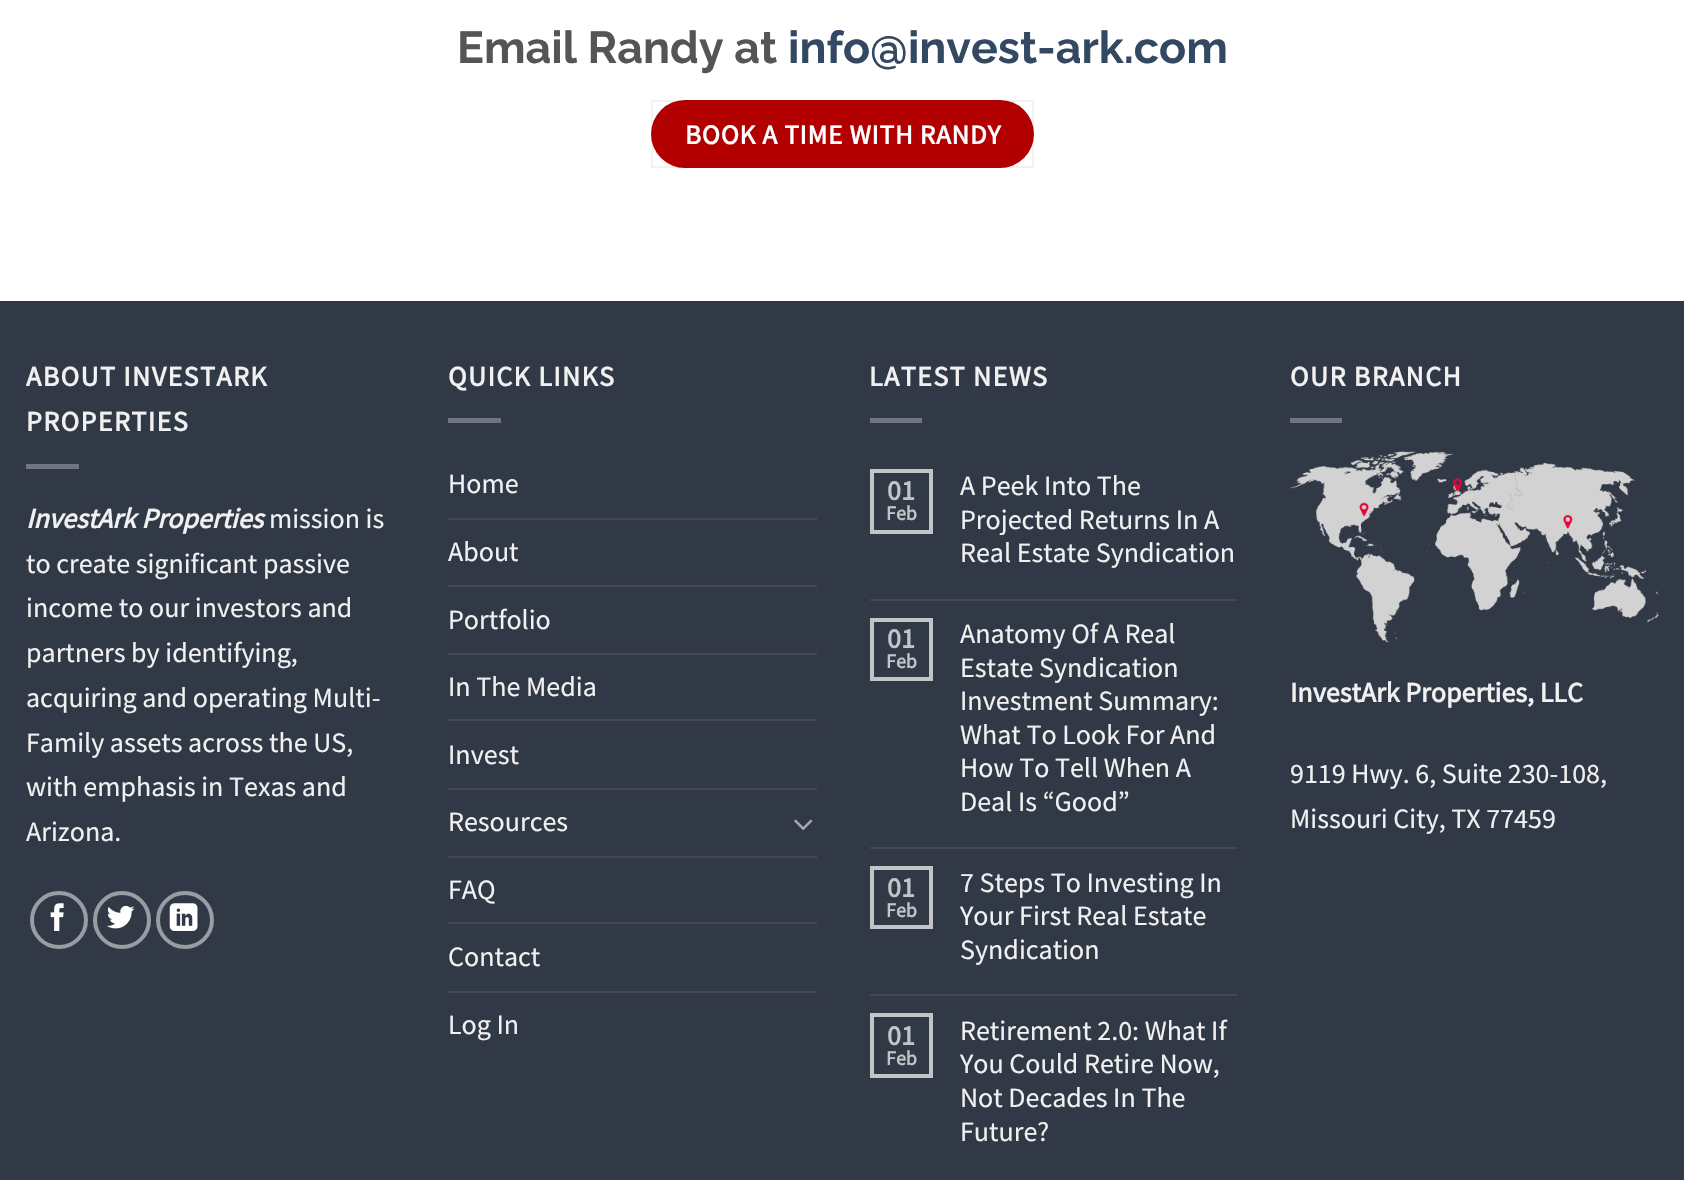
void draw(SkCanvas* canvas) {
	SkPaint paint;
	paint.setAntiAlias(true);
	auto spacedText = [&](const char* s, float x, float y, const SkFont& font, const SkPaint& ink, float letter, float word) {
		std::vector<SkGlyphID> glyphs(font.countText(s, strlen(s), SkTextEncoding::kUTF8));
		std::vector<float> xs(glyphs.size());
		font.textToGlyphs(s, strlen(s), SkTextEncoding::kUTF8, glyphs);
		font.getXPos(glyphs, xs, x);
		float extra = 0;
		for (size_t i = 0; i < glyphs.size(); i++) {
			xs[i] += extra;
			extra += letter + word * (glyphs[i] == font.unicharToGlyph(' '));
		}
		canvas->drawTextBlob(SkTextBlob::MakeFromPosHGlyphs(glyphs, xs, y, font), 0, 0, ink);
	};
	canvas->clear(0xffffffff);
	SkFont f1(fontMgr->matchFamilyStyle("Raleway", SkFontStyle::Bold()), 44.75);
	f1.setSubpixel(true);
	paint.setColor(0xff555555);
	canvas->drawString("Email Randy at", 457, 63, f1, paint);
	paint.setColor(0xff334862);
	canvas->drawString("info@invest-ark.com", 788, 63, f1, paint);
	paint.setColor(0xffb20000);
	canvas->drawRoundRect(SkRect::MakeXYWH(651, 100, 383, 68), 34, 34, paint);
	paint.setStroke(true);
	paint.setStrokeWidth(2);
	paint.setColor(0x0d000000);
	canvas->drawRect(SkRect::MakeXYWH(652, 101, 381, 66), paint);
	SkFont f2(fontMgr->matchFamilyStyle("Source Sans Pro", SkFontStyle::Bold()), 27.2);
	f2.setSubpixel(true);
	paint.setStroke(false);
	paint.setColor(0xffffffff);
	spacedText("BOOK A TIME WITH RANDY", 685, 144, f2, paint, 0.8, 0);
	paint.setColor(0xff323946);
	canvas->drawRect(SkRect::MakeXYWH(0, 303, 1684, 877), paint);
	paint.setColor(0xff303643);
	canvas->drawRect(SkRect::MakeXYWH(0, 301, 1684, 2), paint);
	SkFont f3(fontMgr->matchFamilyStyle("Source Sans Pro", SkFontStyle::Bold()), 28);
	f3.setSubpixel(true);
	paint.setColor(0xfff1f1f1);
	spacedText("ABOUT INVESTARK", 26, 386, f3, paint, 1.4, 0);
	spacedText("PROPERTIES", 26, 431, f3, paint, 1.4, 0);
	paint.setColor(0xff70747e);
	canvas->drawRect(SkRect::MakeXYWH(26, 464, 53, 5), paint);
	SkFont f4(fontMgr->matchFamilyStyle("Source Sans Pro", SkFontStyle::BoldItalic()), 28);
	f4.setSubpixel(true);
	paint.setColor(0xfff1f1f1);
	canvas->drawString("InvestArk Properties", 26, 528, f4, paint);
	SkFont f5(fontMgr->matchFamilyStyle("Source Sans Pro", SkFontStyle::Normal()), 28);
	f5.setSubpixel(true);
	canvas->drawString("mission is", 269, 528, f5, paint);
	canvas->drawString("to create significant passive", 26, 573, f5, paint);
	canvas->drawString("income to our investors and", 26, 617, f5, paint);
	canvas->drawString("partners by identifying,", 26, 662, f5, paint);
	canvas->drawString("acquiring and operating Multi-", 26, 707, f5, paint);
	canvas->drawString("Family assets across the US,", 26, 752, f5, paint);
	canvas->drawString("with emphasis in Texas and", 26, 796, f5, paint);
	canvas->drawString("Arizona.", 26, 841, f5, paint);
	paint.setStroke(true);
	paint.setStrokeWidth(4);
	paint.setColor(0xff999ca3);
	canvas->drawCircle(59, 920, 27, paint);
	canvas->drawImageRect(SkImages::DeferredFromEncodedData(SkData::MakeFromFileName("img1.png")), SkRect::MakeXYWH(50, 903, 14, 28), SkSamplingOptions());
	canvas->drawCircle(122, 920, 27, paint);
	canvas->drawImageRect(SkImages::DeferredFromEncodedData(SkData::MakeFromFileName("img2.png")), SkRect::MakeXYWH(107, 905, 28, 24), SkSamplingOptions());
	canvas->drawCircle(185, 920, 27, paint);
	canvas->drawImageRect(SkImages::DeferredFromEncodedData(SkData::MakeFromFileName("img3.png")), SkRect::MakeXYWH(169, 903, 29, 28), SkSamplingOptions());
	paint.setStroke(false);
	paint.setColor(0xfff1f1f1);
	spacedText("QUICK LINKS", 448, 386, f3, paint, 1.4, 0);
	paint.setColor(0xff70747e);
	canvas->drawRect(SkRect::MakeXYWH(448, 418, 53, 5), paint);
	paint.setColor(0xfff1f1f1);
	canvas->drawString("Home", 448, 493, f5, paint);
	paint.setColor(0xff424955);
	canvas->drawRect(SkRect::MakeXYWH(448, 518, 369, 2), paint);
	paint.setColor(0xfff1f1f1);
	canvas->drawString("About", 448, 561, f5, paint);
	paint.setColor(0xff424955);
	canvas->drawRect(SkRect::MakeXYWH(448, 585, 369, 2), paint);
	paint.setColor(0xfff1f1f1);
	canvas->drawString("Portfolio", 448, 629, f5, paint);
	paint.setColor(0xff424955);
	canvas->drawRect(SkRect::MakeXYWH(448, 653, 369, 2), paint);
	paint.setColor(0xfff1f1f1);
	canvas->drawString("In The Media", 448, 696, f5, paint);
	paint.setColor(0xff424955);
	canvas->drawRect(SkRect::MakeXYWH(448, 719, 369, 2), paint);
	paint.setColor(0xfff1f1f1);
	canvas->drawString("Invest", 448, 764, f5, paint);
	paint.setColor(0xff424955);
	canvas->drawRect(SkRect::MakeXYWH(448, 788, 369, 2), paint);
	paint.setColor(0xfff1f1f1);
	canvas->drawString("Resources", 448, 831, f5, paint);
	canvas->drawImageRect(SkImages::DeferredFromEncodedData(SkData::MakeFromFileName("img4.png")), SkRect::MakeXYWH(794, 819, 19, 12), SkSamplingOptions());
	paint.setColor(0xff424955);
	canvas->drawRect(SkRect::MakeXYWH(448, 856, 369, 2), paint);
	paint.setColor(0xfff1f1f1);
	canvas->drawString("FAQ", 448, 899, f5, paint);
	paint.setColor(0xff424955);
	canvas->drawRect(SkRect::MakeXYWH(448, 922, 369, 2), paint);
	paint.setColor(0xfff1f1f1);
	canvas->drawString("Contact", 448, 966, f5, paint);
	paint.setColor(0xff424955);
	canvas->drawRect(SkRect::MakeXYWH(448, 991, 369, 2), paint);
	paint.setColor(0xfff1f1f1);
	canvas->drawString("Log In", 448, 1034, f5, paint);
	spacedText("LATEST NEWS", 869, 386, f3, paint, 1.4, 0);
	paint.setColor(0xff70747e);
	canvas->drawRect(SkRect::MakeXYWH(870, 418, 52, 5), paint);
	paint.setStroke(true);
	paint.setColor(0xffc2c4c8);
	canvas->drawRect(SkRect::MakeXYWH(872, 471, 59, 61), paint);
	paint.setStroke(false);
	canvas->drawString("01", 887, 500, f3, paint);
	SkFont f6(fontMgr->matchFamilyStyle("Source Sans Pro", SkFontStyle::Bold()), 20);
	f6.setSubpixel(true);
	canvas->drawString("Feb", 886, 520, f6, paint);
	paint.setColor(0xfff1f1f1);
	canvas->drawString("A Peek Into The", 960, 495, f5, paint);
	canvas->drawString("Projected Returns In A", 960, 529, f5, paint);
	canvas->drawString("Real Estate Syndication", 960, 562, f5, paint);
	paint.setColor(0xff424955);
	canvas->drawRect(SkRect::MakeXYWH(870, 599, 367, 2), paint);
	paint.setStroke(true);
	paint.setColor(0xffc2c4c8);
	canvas->drawRect(SkRect::MakeXYWH(872, 620, 59, 59), paint);
	paint.setStroke(false);
	canvas->drawString("01", 887, 648, f3, paint);
	canvas->drawString("Feb", 886, 668, f6, paint);
	paint.setColor(0xfff1f1f1);
	canvas->drawString("Anatomy Of A Real", 960, 643, f5, paint);
	canvas->drawString("Estate Syndication", 960, 677, f5, paint);
	canvas->drawString("Investment Summary:", 960, 710, f5, paint);
	canvas->drawString("What To Look For And", 960, 744, f5, paint);
	canvas->drawString("How To Tell When A", 960, 777, f5, paint);
	canvas->drawString("Deal Is “Good”", 960, 811, f5, paint);
	paint.setColor(0xff424955);
	canvas->drawRect(SkRect::MakeXYWH(870, 847, 367, 2), paint);
	paint.setStroke(true);
	paint.setColor(0xffc2c4c8);
	canvas->drawRect(SkRect::MakeXYWH(872, 868, 59, 59), paint);
	paint.setStroke(false);
	canvas->drawString("01", 887, 897, f3, paint);
	canvas->drawString("Feb", 886, 917, f6, paint);
	paint.setColor(0xfff1f1f1);
	canvas->drawString("7 Steps To Investing In", 960, 892, f5, paint);
	canvas->drawString("Your First Real Estate", 960, 925, f5, paint);
	canvas->drawString("Syndication", 960, 959, f5, paint);
	paint.setColor(0xff424955);
	canvas->drawRect(SkRect::MakeXYWH(870, 994, 367, 2), paint);
	paint.setStroke(true);
	paint.setColor(0xffc2c4c8);
	canvas->drawRect(SkRect::MakeXYWH(872, 1015, 59, 61), paint);
	paint.setStroke(false);
	canvas->drawString("01", 887, 1045, f3, paint);
	canvas->drawString("Feb", 886, 1065, f6, paint);
	paint.setColor(0xfff1f1f1);
	canvas->drawString("Retirement 2.0: What If", 960, 1040, f5, paint);
	canvas->drawString("You Could Retire Now,", 960, 1073, f5, paint);
	canvas->drawString("Not Decades In The", 960, 1107, f5, paint);
	canvas->drawString("Future?", 960, 1141, f5, paint);
	spacedText("OUR BRANCH", 1290, 386, f3, paint, 1.4, 0);
	paint.setColor(0xff70747e);
	canvas->drawRect(SkRect::MakeXYWH(1290, 418, 52, 5), paint);
	canvas->drawImageRect(SkImages::DeferredFromEncodedData(SkData::MakeFromFileName("img5.png")), SkRect::MakeXYWH(1290, 451, 369, 192), SkSamplingOptions());
	paint.setColor(0xfff1f1f1);
	canvas->drawString("InvestArk Properties, LLC", 1290, 702, f3, paint);
	canvas->drawString("9119 Hwy. 6, Suite 230-108,", 1290, 783, f5, paint);
	canvas->drawString("Missouri City, TX 77459", 1290, 828, f5, paint);
}
